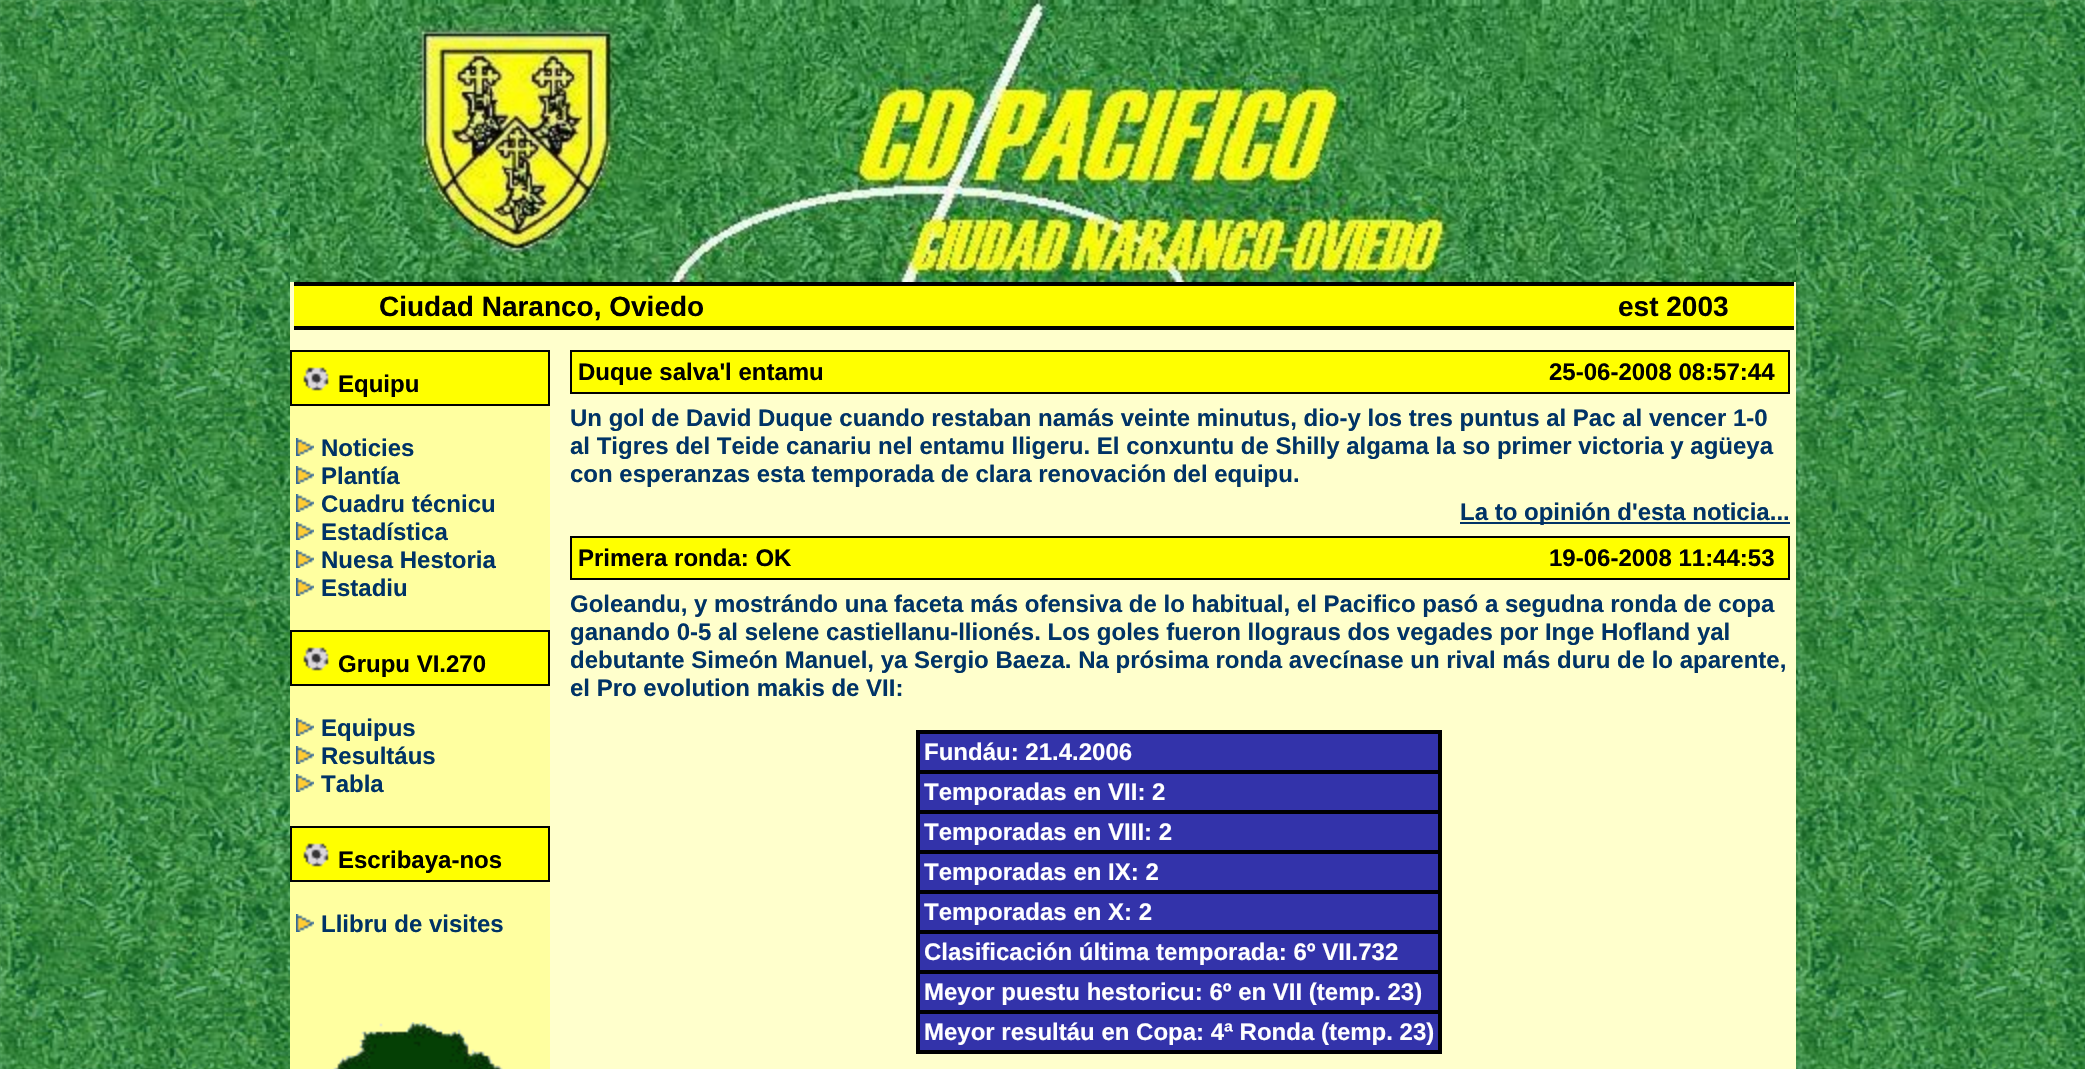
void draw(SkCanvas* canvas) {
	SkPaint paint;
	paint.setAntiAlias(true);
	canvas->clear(0xffffffff);
	canvas->drawImageRect(SkImages::DeferredFromEncodedData(SkData::MakeFromFileName("img1.png")), SkRect::MakeXYWH(0, 0, 2085, 1069), SkSamplingOptions());
	paint.setColor(0xffffffcc);
	canvas->drawRect(SkRect::MakeXYWH(290, 282, 1506, 787), paint);
	canvas->drawImageRect(SkImages::DeferredFromEncodedData(SkData::MakeFromFileName("img2.png")), SkRect::MakeXYWH(290, 0, 1506, 282), SkSamplingOptions());
	paint.setColor(0xff000000);
	canvas->drawRect(SkRect::MakeXYWH(294, 282, 1500, 4), paint);
	paint.setColor(0xffffff00);
	canvas->drawRect(SkRect::MakeXYWH(294, 286, 1500, 40), paint);
	SkFont f1(fontMgr->matchFamilyStyle("Liberation Sans", SkFontStyle::Bold()), 28);
	f1.setSubpixel(true);
	paint.setColor(0xff000000);
	canvas->drawString("Ciudad Naranco, Oviedo", 379, 316, f1, paint);
	canvas->drawString("est 2003", 1618, 316, f1, paint);
	canvas->drawRect(SkRect::MakeXYWH(294, 326, 1500, 4), paint);
	paint.setColor(0xffffffa0);
	canvas->drawRect(SkRect::MakeXYWH(290, 406, 260, 663), paint);
	paint.setColor(0xff000000);
	canvas->drawRect(SkRect::MakeXYWH(290, 350, 260, 56), paint);
	paint.setColor(0xffffff00);
	canvas->drawRect(SkRect::MakeXYWH(292, 352, 256, 52), paint);
	canvas->drawImageRect(SkImages::DeferredFromEncodedData(SkData::MakeFromFileName("img3.png")), SkRect::MakeXYWH(303, 367, 26, 24), SkSamplingOptions());
	SkFont f2(fontMgr->matchFamilyStyle("Liberation Sans", SkFontStyle::Bold()), 24);
	f2.setSubpixel(true);
	paint.setColor(0xff000000);
	canvas->drawString("Equipu", 338, 392, f2, paint);
	canvas->drawImageRect(SkImages::DeferredFromEncodedData(SkData::MakeFromFileName("img4.png")), SkRect::MakeXYWH(296, 438, 18, 18), SkSamplingOptions());
	paint.setColor(0xff003366);
	canvas->drawString("Noticies", 321, 456, f2, paint);
	canvas->drawImageRect(SkImages::DeferredFromEncodedData(SkData::MakeFromFileName("img4.png")), SkRect::MakeXYWH(296, 466, 18, 18), SkSamplingOptions());
	canvas->drawString("Plantía", 321, 484, f2, paint);
	canvas->drawImageRect(SkImages::DeferredFromEncodedData(SkData::MakeFromFileName("img4.png")), SkRect::MakeXYWH(296, 494, 18, 18), SkSamplingOptions());
	canvas->drawString("Cuadru técnicu", 321, 512, f2, paint);
	canvas->drawImageRect(SkImages::DeferredFromEncodedData(SkData::MakeFromFileName("img4.png")), SkRect::MakeXYWH(296, 522, 18, 18), SkSamplingOptions());
	canvas->drawString("Estadística", 321, 540, f2, paint);
	canvas->drawImageRect(SkImages::DeferredFromEncodedData(SkData::MakeFromFileName("img4.png")), SkRect::MakeXYWH(296, 550, 18, 18), SkSamplingOptions());
	canvas->drawString("Nuesa Hestoria", 321, 568, f2, paint);
	canvas->drawImageRect(SkImages::DeferredFromEncodedData(SkData::MakeFromFileName("img4.png")), SkRect::MakeXYWH(296, 578, 18, 18), SkSamplingOptions());
	canvas->drawString("Estadiu", 321, 596, f2, paint);
	paint.setColor(0xff000000);
	canvas->drawRect(SkRect::MakeXYWH(290, 630, 260, 56), paint);
	paint.setColor(0xffffff00);
	canvas->drawRect(SkRect::MakeXYWH(292, 632, 256, 52), paint);
	canvas->drawImageRect(SkImages::DeferredFromEncodedData(SkData::MakeFromFileName("img3.png")), SkRect::MakeXYWH(303, 647, 26, 24), SkSamplingOptions());
	paint.setColor(0xff000000);
	canvas->drawString("Grupu VI.270", 338, 672, f2, paint);
	canvas->drawImageRect(SkImages::DeferredFromEncodedData(SkData::MakeFromFileName("img4.png")), SkRect::MakeXYWH(296, 718, 18, 18), SkSamplingOptions());
	paint.setColor(0xff003366);
	canvas->drawString("Equipus", 321, 736, f2, paint);
	canvas->drawImageRect(SkImages::DeferredFromEncodedData(SkData::MakeFromFileName("img4.png")), SkRect::MakeXYWH(296, 746, 18, 18), SkSamplingOptions());
	canvas->drawString("Resultáus", 321, 764, f2, paint);
	canvas->drawImageRect(SkImages::DeferredFromEncodedData(SkData::MakeFromFileName("img4.png")), SkRect::MakeXYWH(296, 774, 18, 18), SkSamplingOptions());
	canvas->drawString("Tabla", 321, 792, f2, paint);
	paint.setColor(0xff000000);
	canvas->drawRect(SkRect::MakeXYWH(290, 826, 260, 56), paint);
	paint.setColor(0xffffff00);
	canvas->drawRect(SkRect::MakeXYWH(292, 828, 256, 52), paint);
	canvas->drawImageRect(SkImages::DeferredFromEncodedData(SkData::MakeFromFileName("img3.png")), SkRect::MakeXYWH(303, 843, 26, 24), SkSamplingOptions());
	paint.setColor(0xff000000);
	canvas->drawString("Escribaya-nos", 338, 868, f2, paint);
	canvas->drawImageRect(SkImages::DeferredFromEncodedData(SkData::MakeFromFileName("img4.png")), SkRect::MakeXYWH(296, 914, 18, 18), SkSamplingOptions());
	paint.setColor(0xff003366);
	canvas->drawString("Llibru de visites", 321, 932, f2, paint);
	canvas->drawImageRect(SkImages::DeferredFromEncodedData(SkData::MakeFromFileName("img5.png")), SkRect::MakeXYWH(333, 1022, 170, 47), SkSamplingOptions());
	paint.setColor(0xff000000);
	canvas->drawRect(SkRect::MakeXYWH(570, 350, 1220, 44), paint);
	paint.setColor(0xffffff00);
	canvas->drawRect(SkRect::MakeXYWH(572, 352, 1216, 40), paint);
	paint.setColor(0xff000000);
	canvas->drawString("Duque salva'l entamu", 578, 380, f2, paint);
	canvas->drawString("25-06-2008 08:57:44", 1549, 380, f2, paint);
	paint.setColor(0xff003366);
	canvas->drawString("Un gol de David Duque cuando restaban namás veinte minutus, dio-y los tres puntus al Pac al vencer 1-0", 570, 426, f2, paint);
	canvas->drawString("al Tigres del Teide canariu nel entamu lligeru. El conxuntu de Shilly algama la so primer victoria y agüeya", 570, 454, f2, paint);
	canvas->drawString("con esperanzas esta temporada de clara renovación del equipu.", 570, 482, f2, paint);
	canvas->drawRect(SkRect::MakeXYWH(1460, 522, 330, 2), paint);
	canvas->drawString("La to opinión d'esta noticia...", 1460, 520, f2, paint);
	paint.setColor(0xff000000);
	canvas->drawRect(SkRect::MakeXYWH(570, 536, 1220, 44), paint);
	paint.setColor(0xffffff00);
	canvas->drawRect(SkRect::MakeXYWH(572, 538, 1216, 40), paint);
	paint.setColor(0xff000000);
	canvas->drawString("Primera ronda: OK", 578, 566, f2, paint);
	canvas->drawString("19-06-2008 11:44:53", 1549, 566, f2, paint);
	paint.setColor(0xff003366);
	canvas->drawString("Goleandu, y mostrándo una faceta más ofensiva de lo habitual, el Pacifico pasó a segudna ronda de copa", 570, 612, f2, paint);
	canvas->drawString("ganando 0-5 al selene castiellanu-llionés. Los goles fueron llograus dos vegades por Inge Hofland yal", 570, 640, f2, paint);
	canvas->drawString("debutante Simeón Manuel, ya Sergio Baeza. Na prósima ronda avecínase un rival más duru de lo aparente,", 570, 668, f2, paint);
	canvas->drawString("el Pro evolution makis de VII:", 570, 696, f2, paint);
	paint.setStroke(true);
	paint.setStrokeWidth(2);
	paint.setColor(0xff000000);
	canvas->drawRect(SkRect::MakeXYWH(917, 731, 524, 322), paint);
	paint.setStroke(false);
	paint.setColor(0xff3333aa);
	canvas->drawRect(SkRect::MakeXYWH(919, 733, 520, 38), paint);
	paint.setStroke(true);
	paint.setColor(0xff000000);
	canvas->drawRect(SkRect::MakeXYWH(919, 733, 520, 38), paint);
	paint.setStroke(false);
	paint.setColor(0xffffffff);
	canvas->drawString("Fundáu: 21.4.2006", 924, 760, f2, paint);
	paint.setColor(0xff3333aa);
	canvas->drawRect(SkRect::MakeXYWH(919, 773, 520, 38), paint);
	paint.setStroke(true);
	paint.setColor(0xff000000);
	canvas->drawRect(SkRect::MakeXYWH(919, 773, 520, 38), paint);
	paint.setStroke(false);
	paint.setColor(0xffffffff);
	canvas->drawString("Temporadas en VII: 2", 924, 800, f2, paint);
	paint.setColor(0xff3333aa);
	canvas->drawRect(SkRect::MakeXYWH(919, 813, 520, 38), paint);
	paint.setStroke(true);
	paint.setColor(0xff000000);
	canvas->drawRect(SkRect::MakeXYWH(919, 813, 520, 38), paint);
	paint.setStroke(false);
	paint.setColor(0xffffffff);
	canvas->drawString("Temporadas en VIII: 2", 924, 840, f2, paint);
	paint.setColor(0xff3333aa);
	canvas->drawRect(SkRect::MakeXYWH(919, 853, 520, 38), paint);
	paint.setStroke(true);
	paint.setColor(0xff000000);
	canvas->drawRect(SkRect::MakeXYWH(919, 853, 520, 38), paint);
	paint.setStroke(false);
	paint.setColor(0xffffffff);
	canvas->drawString("Temporadas en IX: 2", 924, 880, f2, paint);
	paint.setColor(0xff3333aa);
	canvas->drawRect(SkRect::MakeXYWH(919, 893, 520, 38), paint);
	paint.setStroke(true);
	paint.setColor(0xff000000);
	canvas->drawRect(SkRect::MakeXYWH(919, 893, 520, 38), paint);
	paint.setStroke(false);
	paint.setColor(0xffffffff);
	canvas->drawString("Temporadas en X: 2", 924, 920, f2, paint);
	paint.setColor(0xff3333aa);
	canvas->drawRect(SkRect::MakeXYWH(919, 933, 520, 38), paint);
	paint.setStroke(true);
	paint.setColor(0xff000000);
	canvas->drawRect(SkRect::MakeXYWH(919, 933, 520, 38), paint);
	paint.setStroke(false);
	paint.setColor(0xffffffff);
	canvas->drawString("Clasificación última temporada: 6º VII.732", 924, 960, f2, paint);
	paint.setColor(0xff3333aa);
	canvas->drawRect(SkRect::MakeXYWH(919, 973, 520, 38), paint);
	paint.setStroke(true);
	paint.setColor(0xff000000);
	canvas->drawRect(SkRect::MakeXYWH(919, 973, 520, 38), paint);
	paint.setStroke(false);
	paint.setColor(0xffffffff);
	canvas->drawString("Meyor puestu hestoricu: 6º en VII (temp. 23)", 924, 1000, f2, paint);
	paint.setColor(0xff3333aa);
	canvas->drawRect(SkRect::MakeXYWH(919, 1013, 520, 38), paint);
	paint.setStroke(true);
	paint.setColor(0xff000000);
	canvas->drawRect(SkRect::MakeXYWH(919, 1013, 520, 38), paint);
	paint.setStroke(false);
	paint.setColor(0xffffffff);
	canvas->drawString("Meyor resultáu en Copa: 4ª Ronda (temp. 23)", 924, 1040, f2, paint);
}
